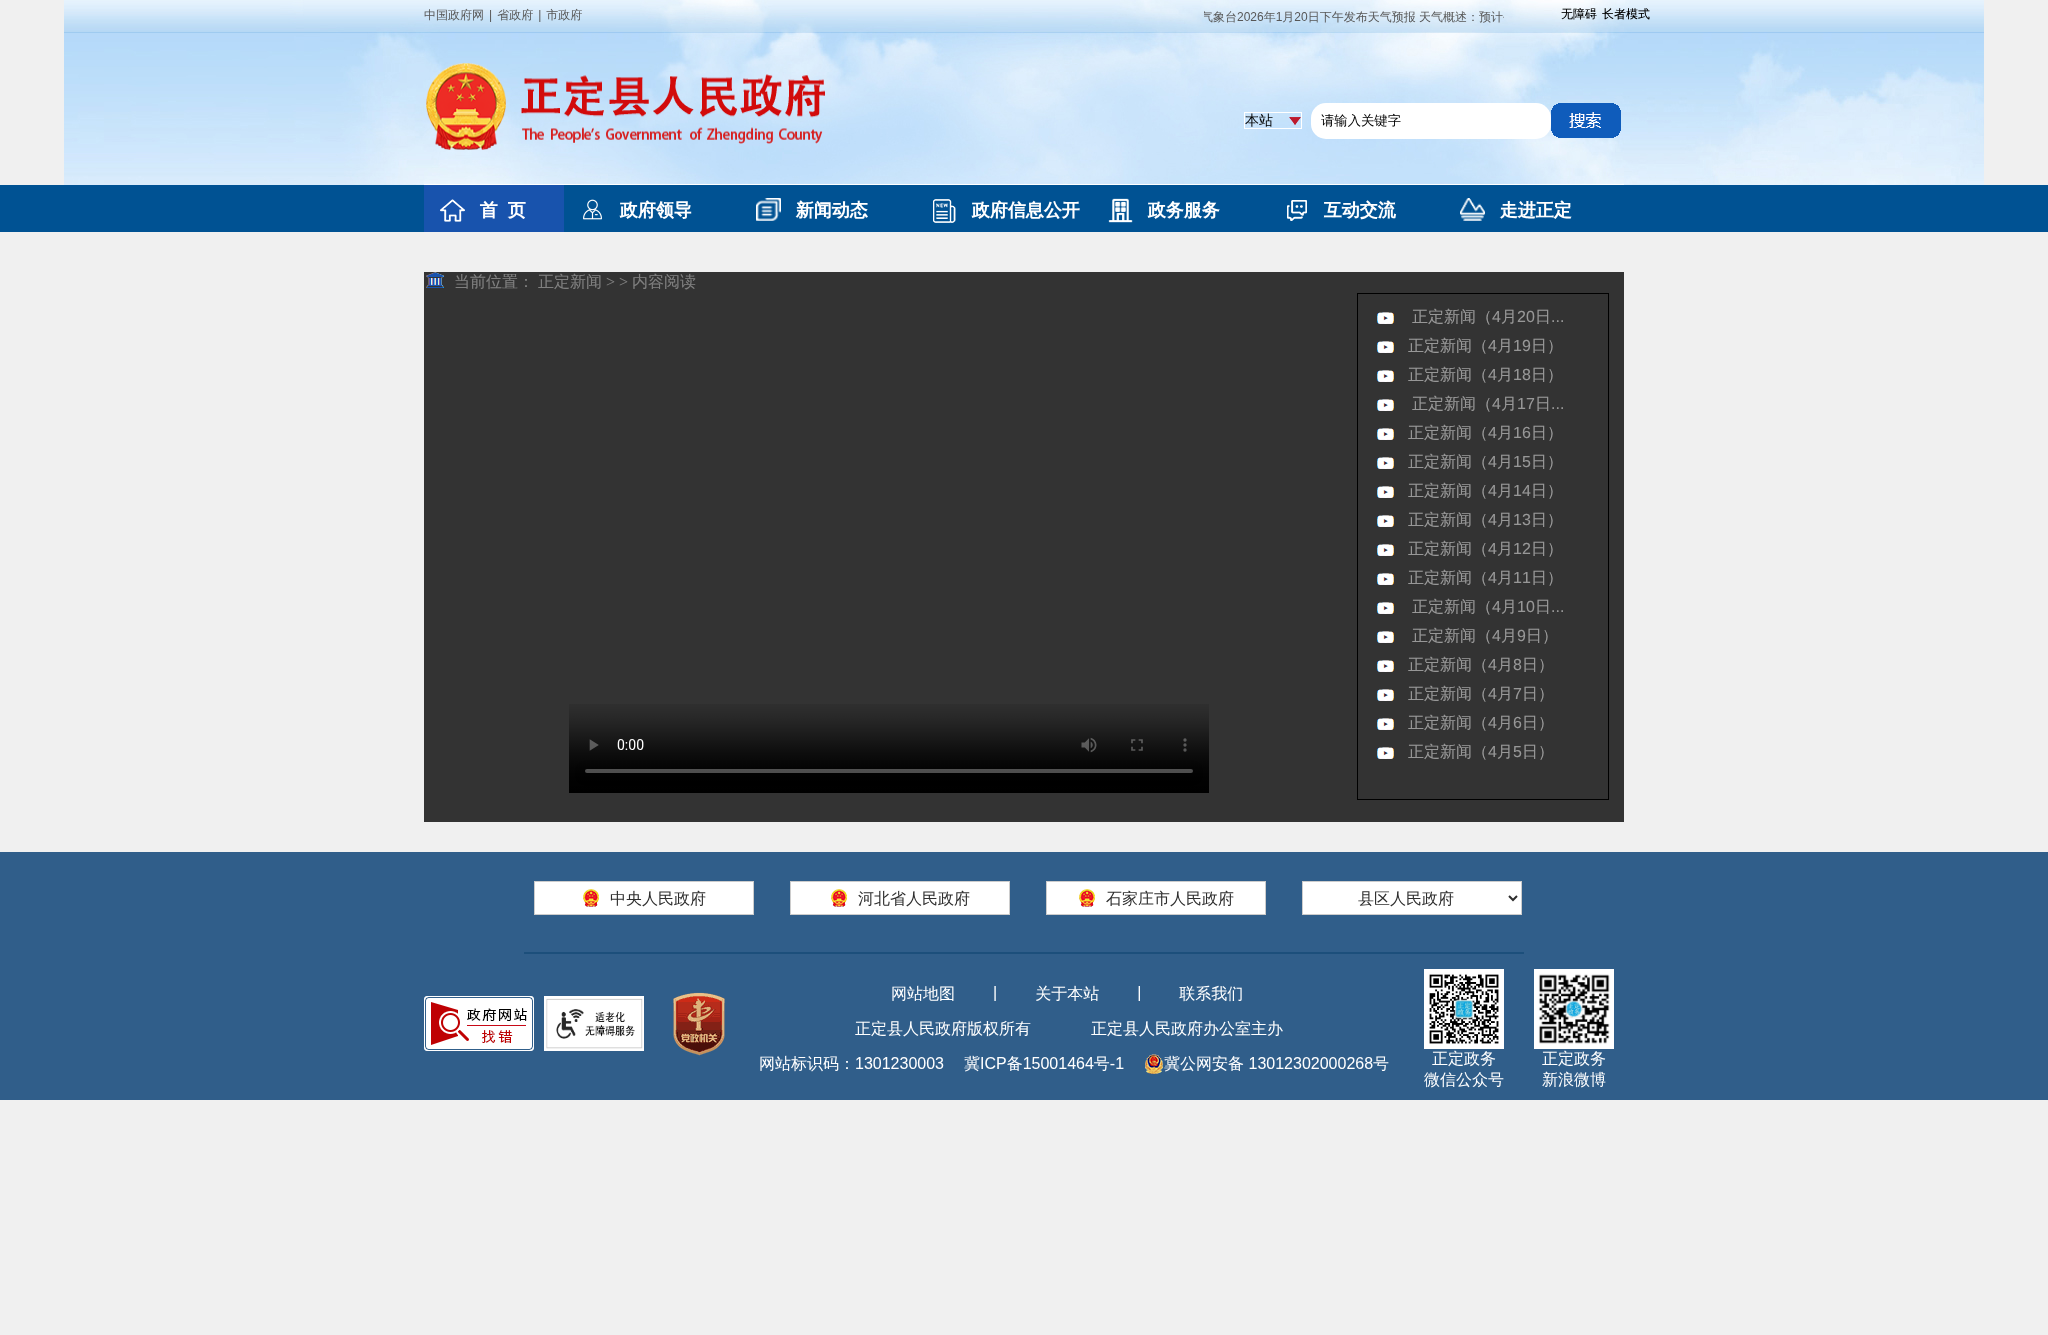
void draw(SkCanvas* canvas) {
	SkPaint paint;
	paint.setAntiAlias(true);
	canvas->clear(0xfff0f0f0);
	canvas->drawImageRect(SkImages::DeferredFromEncodedData(SkData::MakeFromFileName("img1.png")), SkRect::MakeXYWH(0, 0, 2048, 232), SkSamplingOptions());
	SkFont f1(fontMgr->matchFamilyStyle("WenQuanYi Zen Hei", SkFontStyle(500, SkFontStyle::kNormal_Width, SkFontStyle::kUpright_Slant)), 12);
	f1.setSubpixel(true);
	paint.setColor(0xff000000);
	canvas->drawString("无障碍", 1561, 18, f1, paint);
	canvas->drawString("长者模式", 1602, 18, f1, paint);
	paint.setColor(0xff333333);
	canvas->drawRect(SkRect::MakeXYWH(424, 272, 1200, 550), paint);
	canvas->drawImageRect(SkImages::DeferredFromEncodedData(SkData::MakeFromFileName("img2.png")), SkRect::MakeXYWH(426, 272, 18, 16), SkSamplingOptions());
	SkFont f2(fontMgr->matchFamilyStyle("WenQuanYi Zen Hei", SkFontStyle(500, SkFontStyle::kNormal_Width, SkFontStyle::kUpright_Slant)), 16);
	f2.setSubpixel(true);
	paint.setColor(0xff7f7f7f);
	canvas->drawString("当前位置：", 454, 287, f2, paint);
	canvas->drawString("正定新闻", 538, 287, f2, paint);
	SkFont f3(fontMgr->matchFamilyStyle("Liberation Serif", SkFontStyle::Normal()), 16);
	f3.setSubpixel(true);
	canvas->drawString("> >", 606, 287, f3, paint);
	canvas->drawString("内容阅读", 632, 287, f2, paint);
	canvas->drawImageRect(SkImages::DeferredFromEncodedData(SkData::MakeFromFileName("img3.png")), SkRect::MakeXYWH(569, 704, 640, 89), SkSamplingOptions());
	paint.setStroke(true);
	paint.setStrokeWidth(1);
	paint.setColor(0xff000000);
	canvas->drawRect(SkRect::MakeXYWH(1357.5, 293.5, 251, 506), paint);
	canvas->drawImageRect(SkImages::DeferredFromEncodedData(SkData::MakeFromFileName("img4.png")), SkRect::MakeXYWH(1377, 312, 17, 12), SkSamplingOptions());
	paint.setStroke(false);
	paint.setColor(0xff979797);
	canvas->drawString("正定新闻（", 1412, 322, f2, paint);
	SkFont f4(fontMgr->matchFamilyStyle("Liberation Sans", SkFontStyle::Normal()), 16);
	f4.setSubpixel(true);
	canvas->drawString("4", 1492, 322, f4, paint);
	canvas->drawString("月", 1501, 322, f2, paint);
	canvas->drawString("20", 1517, 322, f4, paint);
	canvas->drawString("日", 1535, 322, f2, paint);
	canvas->drawString("...", 1551, 322, f4, paint);
	canvas->drawImageRect(SkImages::DeferredFromEncodedData(SkData::MakeFromFileName("img4.png")), SkRect::MakeXYWH(1377, 341, 17, 12), SkSamplingOptions());
	canvas->drawString("正定新闻（", 1408, 351, f2, paint);
	canvas->drawString("4", 1488, 351, f4, paint);
	canvas->drawString("月", 1497, 351, f2, paint);
	canvas->drawString("19", 1513, 351, f4, paint);
	canvas->drawString("日）", 1531, 351, f2, paint);
	canvas->drawImageRect(SkImages::DeferredFromEncodedData(SkData::MakeFromFileName("img4.png")), SkRect::MakeXYWH(1377, 370, 17, 12), SkSamplingOptions());
	canvas->drawString("正定新闻（", 1408, 380, f2, paint);
	canvas->drawString("4", 1488, 380, f4, paint);
	canvas->drawString("月", 1497, 380, f2, paint);
	canvas->drawString("18", 1513, 380, f4, paint);
	canvas->drawString("日）", 1531, 380, f2, paint);
	canvas->drawImageRect(SkImages::DeferredFromEncodedData(SkData::MakeFromFileName("img4.png")), SkRect::MakeXYWH(1377, 399, 17, 12), SkSamplingOptions());
	canvas->drawString("正定新闻（", 1412, 409, f2, paint);
	canvas->drawString("4", 1492, 409, f4, paint);
	canvas->drawString("月", 1501, 409, f2, paint);
	canvas->drawString("17", 1517, 409, f4, paint);
	canvas->drawString("日", 1535, 409, f2, paint);
	canvas->drawString("...", 1551, 409, f4, paint);
	canvas->drawImageRect(SkImages::DeferredFromEncodedData(SkData::MakeFromFileName("img4.png")), SkRect::MakeXYWH(1377, 428, 17, 12), SkSamplingOptions());
	canvas->drawString("正定新闻（", 1408, 438, f2, paint);
	canvas->drawString("4", 1488, 438, f4, paint);
	canvas->drawString("月", 1497, 438, f2, paint);
	canvas->drawString("16", 1513, 438, f4, paint);
	canvas->drawString("日）", 1531, 438, f2, paint);
	canvas->drawImageRect(SkImages::DeferredFromEncodedData(SkData::MakeFromFileName("img4.png")), SkRect::MakeXYWH(1377, 457, 17, 12), SkSamplingOptions());
	canvas->drawString("正定新闻（", 1408, 467, f2, paint);
	canvas->drawString("4", 1488, 467, f4, paint);
	canvas->drawString("月", 1497, 467, f2, paint);
	canvas->drawString("15", 1513, 467, f4, paint);
	canvas->drawString("日）", 1531, 467, f2, paint);
	canvas->drawImageRect(SkImages::DeferredFromEncodedData(SkData::MakeFromFileName("img4.png")), SkRect::MakeXYWH(1377, 486, 17, 12), SkSamplingOptions());
	canvas->drawString("正定新闻（", 1408, 496, f2, paint);
	canvas->drawString("4", 1488, 496, f4, paint);
	canvas->drawString("月", 1497, 496, f2, paint);
	canvas->drawString("14", 1513, 496, f4, paint);
	canvas->drawString("日）", 1531, 496, f2, paint);
	canvas->drawImageRect(SkImages::DeferredFromEncodedData(SkData::MakeFromFileName("img4.png")), SkRect::MakeXYWH(1377, 515, 17, 12), SkSamplingOptions());
	canvas->drawString("正定新闻（", 1408, 525, f2, paint);
	canvas->drawString("4", 1488, 525, f4, paint);
	canvas->drawString("月", 1497, 525, f2, paint);
	canvas->drawString("13", 1513, 525, f4, paint);
	canvas->drawString("日）", 1531, 525, f2, paint);
	canvas->drawImageRect(SkImages::DeferredFromEncodedData(SkData::MakeFromFileName("img4.png")), SkRect::MakeXYWH(1377, 544, 17, 12), SkSamplingOptions());
	canvas->drawString("正定新闻（", 1408, 554, f2, paint);
	canvas->drawString("4", 1488, 554, f4, paint);
	canvas->drawString("月", 1497, 554, f2, paint);
	canvas->drawString("12", 1513, 554, f4, paint);
	canvas->drawString("日）", 1531, 554, f2, paint);
	canvas->drawImageRect(SkImages::DeferredFromEncodedData(SkData::MakeFromFileName("img4.png")), SkRect::MakeXYWH(1377, 573, 17, 12), SkSamplingOptions());
	canvas->drawString("正定新闻（", 1408, 583, f2, paint);
	canvas->drawString("4", 1488, 583, f4, paint);
	canvas->drawString("月", 1497, 583, f2, paint);
	canvas->drawString("11", 1513, 583, f4, paint);
	canvas->drawString("日）", 1531, 583, f2, paint);
	canvas->drawImageRect(SkImages::DeferredFromEncodedData(SkData::MakeFromFileName("img4.png")), SkRect::MakeXYWH(1377, 602, 17, 12), SkSamplingOptions());
	canvas->drawString("正定新闻（", 1412, 612, f2, paint);
	canvas->drawString("4", 1492, 612, f4, paint);
	canvas->drawString("月", 1501, 612, f2, paint);
	canvas->drawString("10", 1517, 612, f4, paint);
	canvas->drawString("日", 1535, 612, f2, paint);
	canvas->drawString("...", 1551, 612, f4, paint);
	canvas->drawImageRect(SkImages::DeferredFromEncodedData(SkData::MakeFromFileName("img4.png")), SkRect::MakeXYWH(1377, 631, 17, 12), SkSamplingOptions());
	canvas->drawString("正定新闻（", 1412, 641, f2, paint);
	canvas->drawString("4", 1492, 641, f4, paint);
	canvas->drawString("月", 1501, 641, f2, paint);
	canvas->drawString("9", 1517, 641, f4, paint);
	canvas->drawString("日）", 1526, 641, f2, paint);
	canvas->drawImageRect(SkImages::DeferredFromEncodedData(SkData::MakeFromFileName("img4.png")), SkRect::MakeXYWH(1377, 660, 17, 12), SkSamplingOptions());
	canvas->drawString("正定新闻（", 1408, 670, f2, paint);
	canvas->drawString("4", 1488, 670, f4, paint);
	canvas->drawString("月", 1497, 670, f2, paint);
	canvas->drawString("8", 1513, 670, f4, paint);
	canvas->drawString("日）", 1522, 670, f2, paint);
	canvas->drawImageRect(SkImages::DeferredFromEncodedData(SkData::MakeFromFileName("img4.png")), SkRect::MakeXYWH(1377, 689, 17, 12), SkSamplingOptions());
	canvas->drawString("正定新闻（", 1408, 699, f2, paint);
	canvas->drawString("4", 1488, 699, f4, paint);
	canvas->drawString("月", 1497, 699, f2, paint);
	canvas->drawString("7", 1513, 699, f4, paint);
	canvas->drawString("日）", 1522, 699, f2, paint);
	canvas->drawImageRect(SkImages::DeferredFromEncodedData(SkData::MakeFromFileName("img4.png")), SkRect::MakeXYWH(1377, 718, 17, 12), SkSamplingOptions());
	canvas->drawString("正定新闻（", 1408, 728, f2, paint);
	canvas->drawString("4", 1488, 728, f4, paint);
	canvas->drawString("月", 1497, 728, f2, paint);
	canvas->drawString("6", 1513, 728, f4, paint);
	canvas->drawString("日）", 1522, 728, f2, paint);
	canvas->drawImageRect(SkImages::DeferredFromEncodedData(SkData::MakeFromFileName("img4.png")), SkRect::MakeXYWH(1377, 747, 17, 12), SkSamplingOptions());
	canvas->drawString("正定新闻（", 1408, 757, f2, paint);
	canvas->drawString("4", 1488, 757, f4, paint);
	canvas->drawString("月", 1497, 757, f2, paint);
	canvas->drawString("5", 1513, 757, f4, paint);
	canvas->drawString("日）", 1522, 757, f2, paint);
	canvas->drawImageRect(SkImages::DeferredFromEncodedData(SkData::MakeFromFileName("img5.png")), SkRect::MakeXYWH(0, 852, 2048, 248), SkSamplingOptions());
}
